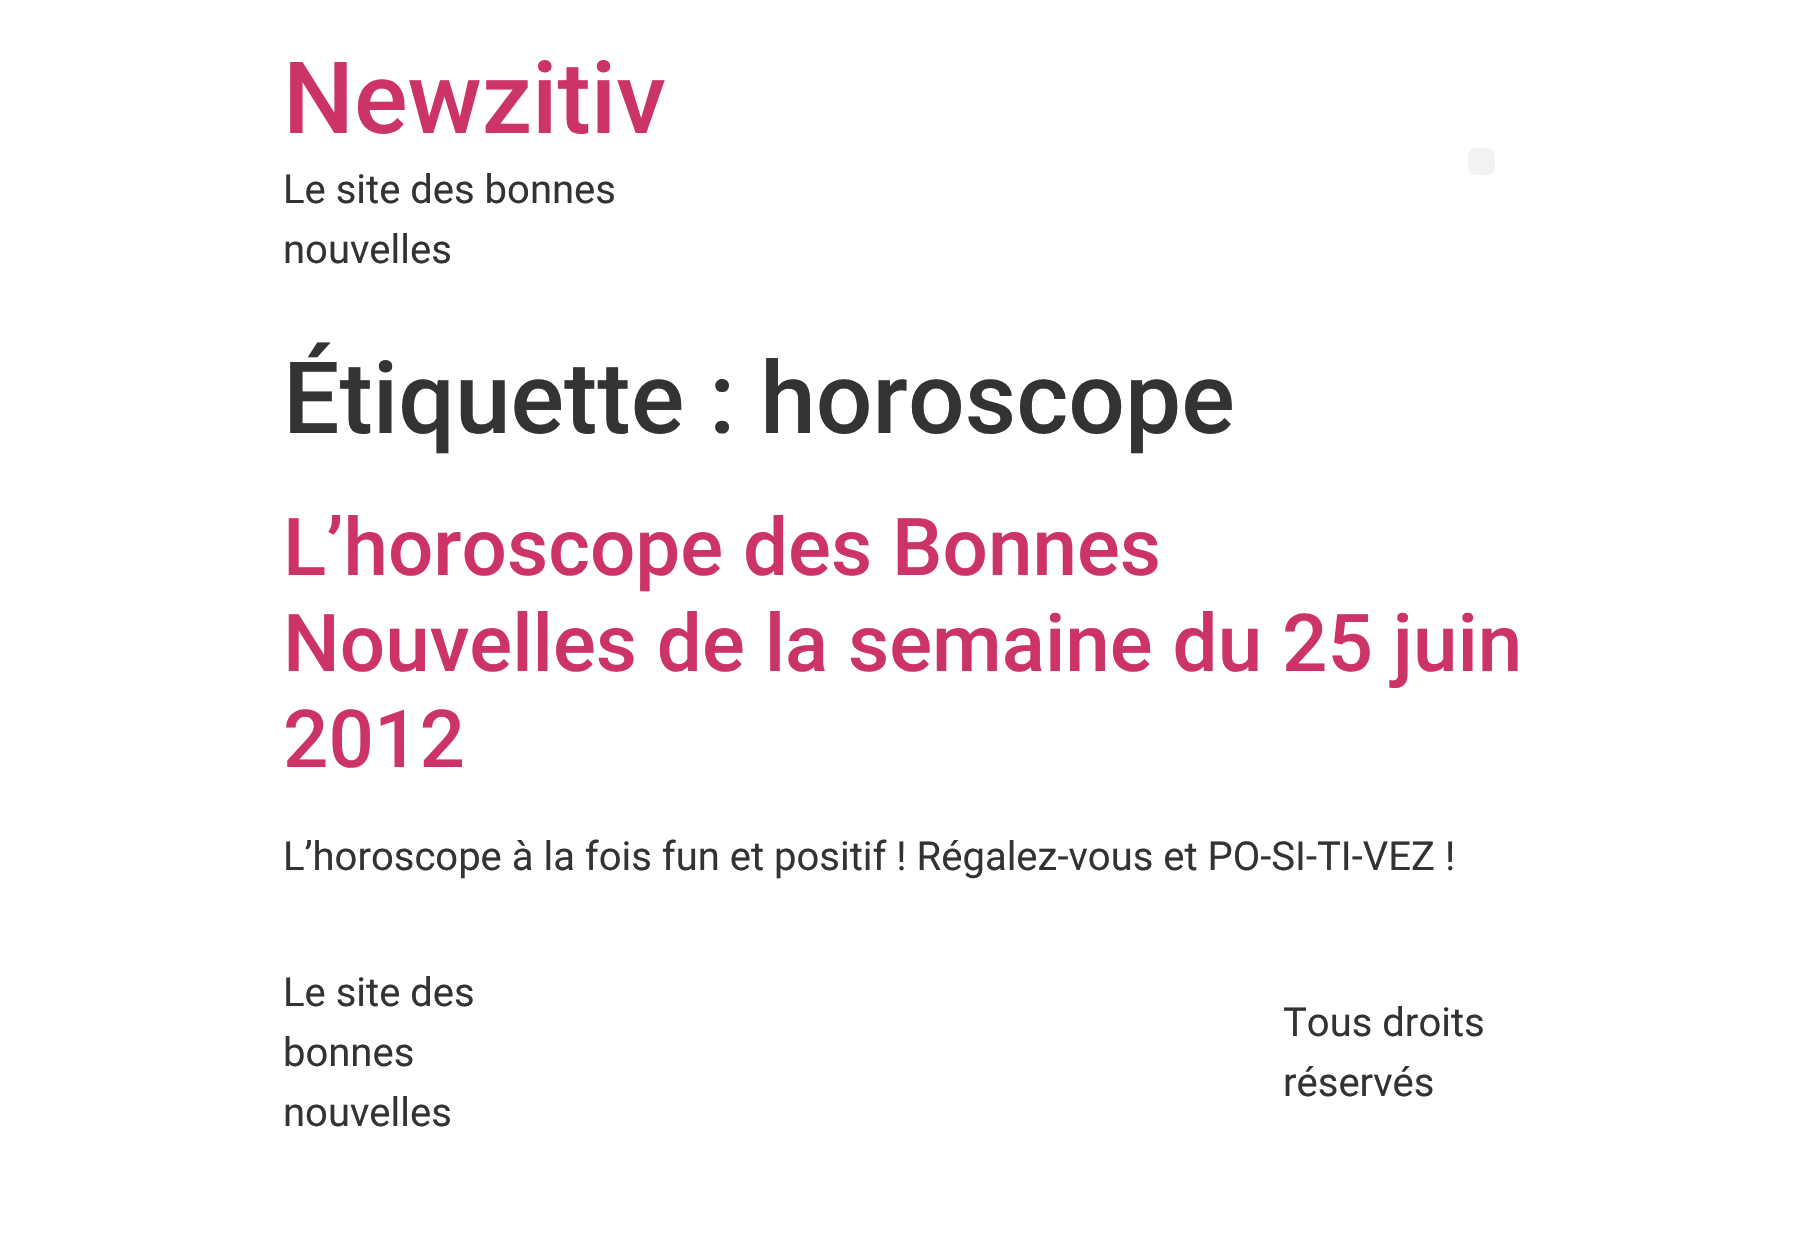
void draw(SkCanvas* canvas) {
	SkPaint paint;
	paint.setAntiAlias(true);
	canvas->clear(0xffffffff);
	SkFont f1(fontMgr->matchFamilyStyle("Roboto", SkFontStyle(500, SkFontStyle::kNormal_Width, SkFontStyle::kUpright_Slant)), 100);
	f1.setSubpixel(true);
	paint.setColor(0xffcc3366);
	canvas->drawString("Newzitiv", 283, 133, f1, paint);
	SkFont f2(fontMgr->matchFamilyStyle("Roboto", SkFontStyle::Normal()), 40);
	f2.setSubpixel(true);
	paint.setColor(0xff333333);
	canvas->drawString("Le site des bonnes", 283, 203, f2, paint);
	canvas->drawString("nouvelles", 283, 263, f2, paint);
	paint.setColor(0xfff2f2f2);
	canvas->drawRoundRect(SkRect::MakeXYWH(1468, 148, 27, 27), 8, 8, paint);
	paint.setColor(0xff333333);
	canvas->drawString("Étiquette : horoscope", 283, 433, f1, paint);
	SkFont f3(fontMgr->matchFamilyStyle("Roboto", SkFontStyle(500, SkFontStyle::kNormal_Width, SkFontStyle::kUpright_Slant)), 80);
	f3.setSubpixel(true);
	paint.setColor(0xffcc3366);
	canvas->drawString("L’horoscope des Bonnes", 283, 575, f3, paint);
	canvas->drawString("Nouvelles de la semaine du 25 juin", 283, 671, f3, paint);
	canvas->drawString("2012", 283, 767, f3, paint);
	paint.setColor(0xff333333);
	canvas->drawString("L’horoscope à la fois fun et positif ! Régalez-vous et PO-SI-TI-VEZ !", 283, 870, f2, paint);
	canvas->drawString("Le site des", 283, 1006, f2, paint);
	canvas->drawString("bonnes", 283, 1066, f2, paint);
	canvas->drawString("nouvelles", 283, 1126, f2, paint);
	canvas->drawString("Tous droits", 1283, 1036, f2, paint);
	canvas->drawString("réservés", 1283, 1096, f2, paint);
}
